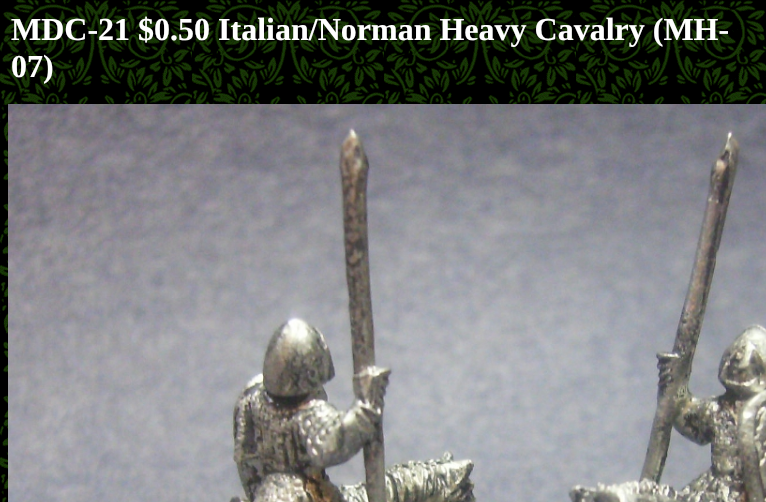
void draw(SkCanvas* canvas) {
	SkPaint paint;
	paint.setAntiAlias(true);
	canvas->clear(0xffffffff);
	canvas->drawImageRect(SkImages::DeferredFromEncodedData(SkData::MakeFromFileName("img1.png")), SkRect::MakeXYWH(0, 0, 766, 502), SkSamplingOptions());
	SkFont f1(fontMgr->matchFamilyStyle("Liberation Serif", SkFontStyle::Bold()), 32);
	f1.setSubpixel(true);
	paint.setColor(0xffffffff);
	canvas->drawString("MDC-21 $0.50 Italian/Norman Heavy Cavalry (MH-", 11, 40, f1, paint);
	canvas->drawString("07)", 11, 77, f1, paint);
	canvas->drawImageRect(SkImages::DeferredFromEncodedData(SkData::MakeFromFileName("img2.png")), SkRect::MakeXYWH(8, 104, 758, 398), SkSamplingOptions());
}
